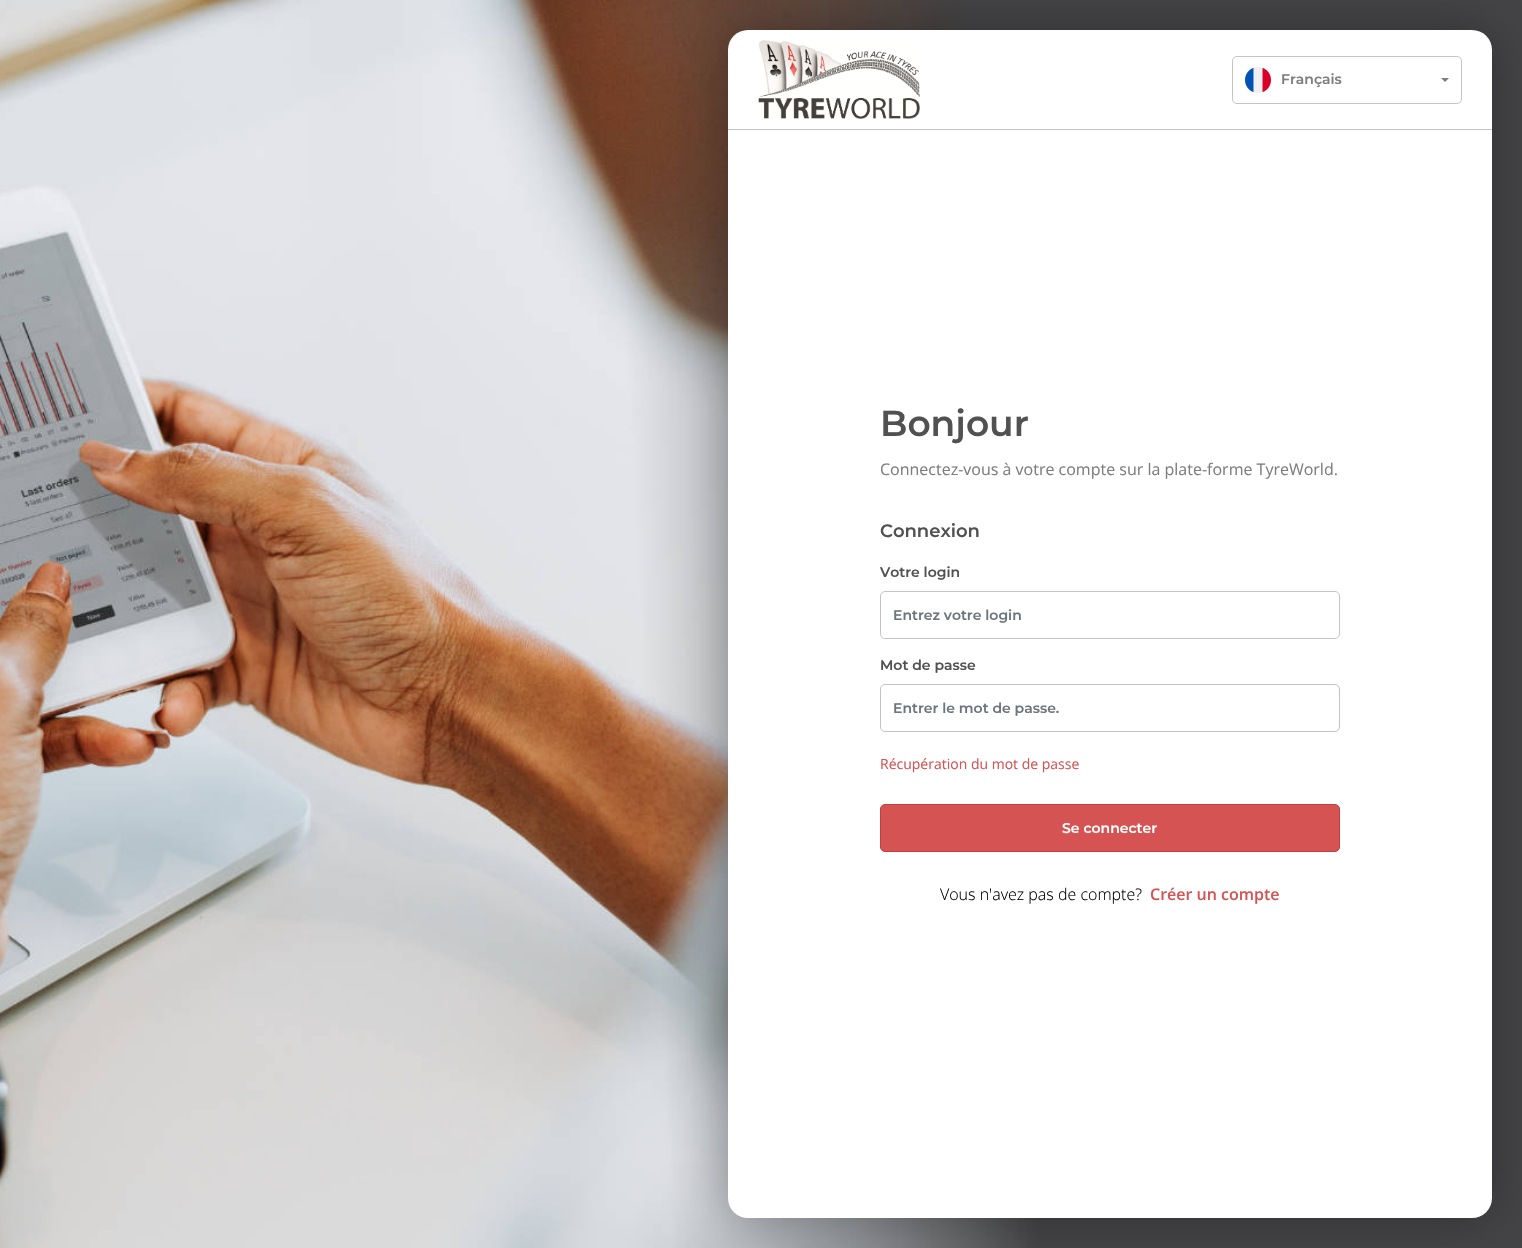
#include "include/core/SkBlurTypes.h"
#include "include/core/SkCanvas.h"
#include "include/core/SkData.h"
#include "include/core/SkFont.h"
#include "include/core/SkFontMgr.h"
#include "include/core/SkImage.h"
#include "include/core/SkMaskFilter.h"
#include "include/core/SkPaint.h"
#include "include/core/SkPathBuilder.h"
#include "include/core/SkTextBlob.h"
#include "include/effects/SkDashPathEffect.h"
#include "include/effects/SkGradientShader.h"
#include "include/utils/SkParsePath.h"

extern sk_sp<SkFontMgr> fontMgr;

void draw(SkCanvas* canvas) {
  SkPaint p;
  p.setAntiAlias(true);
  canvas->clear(SK_ColorWHITE);
  canvas->drawImageRect(SkImages::DeferredFromEncodedData(SkData::MakeFromFileName("images/1.png")), SkRect::MakeLTRB(0, 0, 1522, 1248), SkSamplingOptions());
  p.setColor(SkColorSetARGB(77, 0, 0, 0));
  p.setMaskFilter(SkMaskFilter::MakeBlur(kNormal_SkBlurStyle, 25));
  canvas->drawRoundRect(SkRect::MakeLTRB(728, 30, 1492, 1218), 20, 20, p);
  p.setMaskFilter(nullptr);
  p.setColor(SK_ColorWHITE);
  canvas->drawRoundRect(SkRect::MakeLTRB(728, 30, 1492, 1218), 20, 20, p);
  p.setColor(SkColorSetRGB(196, 196, 196));
  canvas->drawRect(SkRect::MakeLTRB(728, 129, 1492, 130), p);
  canvas->drawImageRect(SkImages::DeferredFromEncodedData(SkData::MakeFromFileName("images/2.png")), SkRect::MakeLTRB(758, 40, 920, 119), SkSamplingOptions());
  p.setStyle(SkPaint::kStroke_Style);
  p.setStrokeWidth(1);
  canvas->drawRoundRect(SkRect::MakeLTRB(1232.5f, 56.5f, 1461.5f, 103.5f), 4.5f, 4.5f, p);
  canvas->drawImageRect(SkImages::DeferredFromEncodedData(SkData::MakeFromFileName("images/3.png")), SkRect::MakeLTRB(1245, 67, 1271, 93), SkSamplingOptions());
  p.setStyle(SkPaint::kFill_Style);
  p.setColor(SkColorSetRGB(125, 125, 125));
  canvas->drawPath(SkPathBuilder().moveTo(1441, 78).lineTo(1449, 78).lineTo(1445, 82).close().detach(), p);
  p.setStyle(SkPaint::kStroke_Style);
  p.setColor(SkColorSetRGB(196, 196, 196));
  canvas->drawRoundRect(SkRect::MakeLTRB(880.5f, 591.5f, 1339.5f, 638.5f), 4.5f, 4.5f, p);
  canvas->drawRoundRect(SkRect::MakeLTRB(880.5f, 684.5f, 1339.5f, 731.5f), 4.5f, 4.5f, p);
  p.setStyle(SkPaint::kFill_Style);
  p.setColor(SkColorSetRGB(214, 83, 83));
  canvas->drawRoundRect(SkRect::MakeLTRB(880.5f, 804.5f, 1339.5f, 851.5f), 4.5f, 4.5f, p);
  p.setStyle(SkPaint::kStroke_Style);
  p.setColor(SkColorSetRGB(193, 63, 63));
  canvas->drawRoundRect(SkRect::MakeLTRB(880.5f, 804.5f, 1339.5f, 851.5f), 4.5f, 4.5f, p);
  SkFont font1(fontMgr->matchFamilyStyle("Montserrat", SkFontStyle(600, SkFontStyle::kNormal_Width, SkFontStyle::kUpright_Slant)), 14);
  font1.setSubpixel(true);
  p.setStyle(SkPaint::kFill_Style);
  p.setColor(SkColorSetRGB(125, 125, 125));
  canvas->drawString("Français", 1281, 84, font1, p);
  SkFont font2(fontMgr->matchFamilyStyle("Montserrat", SkFontStyle(600, SkFontStyle::kNormal_Width, SkFontStyle::kUpright_Slant)), 36);
  font2.setSubpixel(true);
  p.setColor(SkColorSetRGB(81, 81, 81));
  canvas->drawString("Bonjour", 880, 436, font2, p);
  SkFont font3(fontMgr->matchFamilyStyle("Open Sans", SkFontStyle::Normal()), 16);
  font3.setSubpixel(true);
  p.setColor(SkColorSetRGB(125, 125, 125));
  canvas->drawString("Connectez-vous à votre compte sur la plate-forme TyreWorld.", 880, 475, font3, p);
  SkFont font4(fontMgr->matchFamilyStyle("Montserrat", SkFontStyle(600, SkFontStyle::kNormal_Width, SkFontStyle::kUpright_Slant)), 18);
  font4.setSubpixel(true);
  p.setColor(SkColorSetRGB(81, 81, 81));
  canvas->drawString("Connexion", 880, 537, font4, p);
  canvas->drawString("Votre login", 880, 577, font1, p);
  p.setColor(SkColorSetRGB(108, 117, 125));
  canvas->drawString("Entrez votre login", 893, 620, font1, p);
  p.setColor(SkColorSetRGB(81, 81, 81));
  canvas->drawString("Mot de passe", 880, 670, font1, p);
  p.setColor(SkColorSetRGB(108, 117, 125));
  canvas->drawString("Entrer le mot de passe.", 893, 713, font1, p);
  SkFont font5(fontMgr->matchFamilyStyle("Open Sans", SkFontStyle::Normal()), 14);
  font5.setSubpixel(true);
  p.setColor(SkColorSetRGB(214, 83, 83));
  canvas->drawString("Récupération du mot de passe", 880, 769, font5, p);
  p.setColor(SK_ColorWHITE);
  canvas->drawString("Se connecter", 1062, 833, font1, p);
  SkFont font6(fontMgr->matchFamilyStyle("Open Sans", SkFontStyle(300, SkFontStyle::kNormal_Width, SkFontStyle::kUpright_Slant)), 16);
  font6.setSubpixel(true);
  p.setColor(SK_ColorBLACK);
  canvas->drawString("Vous n'avez pas de compte?", 940, 900, font6, p);
  SkFont font7(fontMgr->matchFamilyStyle("Open Sans", SkFontStyle(600, SkFontStyle::kNormal_Width, SkFontStyle::kUpright_Slant)), 16);
  font7.setSubpixel(true);
  p.setColor(SkColorSetRGB(214, 83, 83));
  canvas->drawString("Créer un compte", 1150, 900, font7, p);
}
